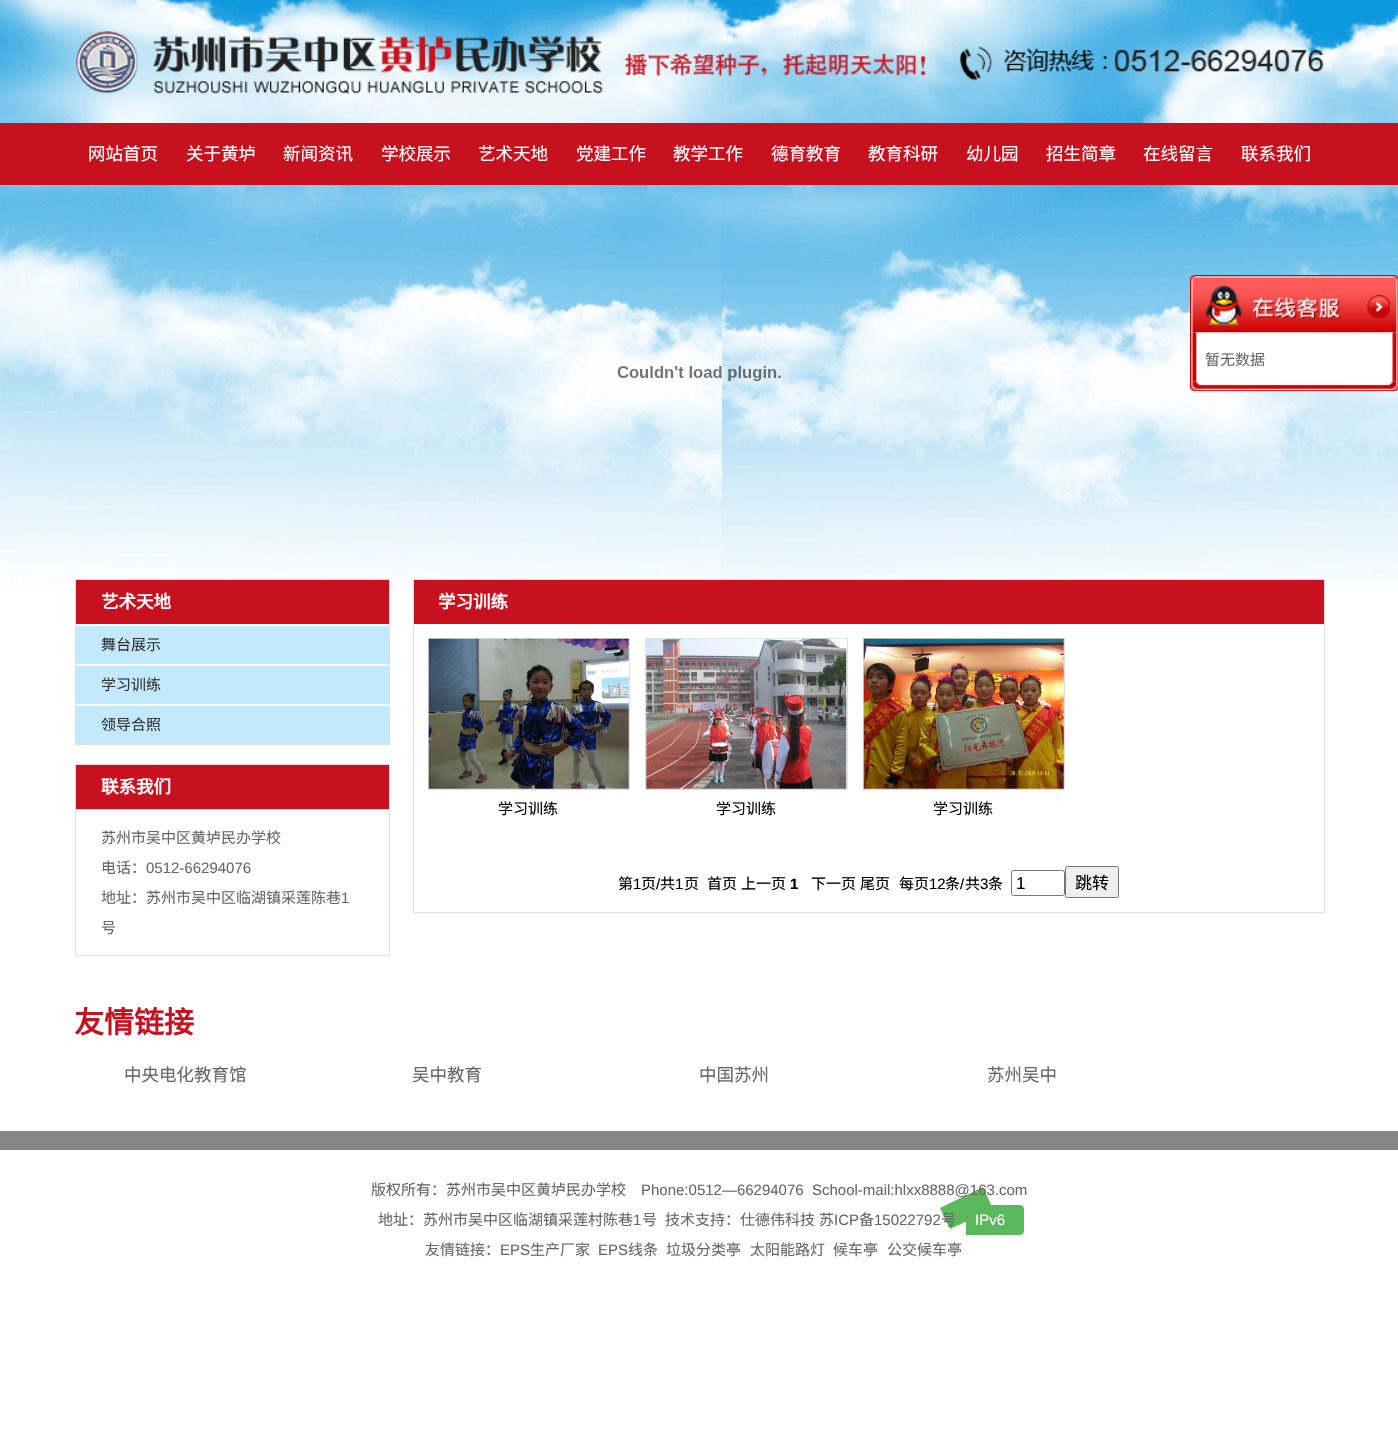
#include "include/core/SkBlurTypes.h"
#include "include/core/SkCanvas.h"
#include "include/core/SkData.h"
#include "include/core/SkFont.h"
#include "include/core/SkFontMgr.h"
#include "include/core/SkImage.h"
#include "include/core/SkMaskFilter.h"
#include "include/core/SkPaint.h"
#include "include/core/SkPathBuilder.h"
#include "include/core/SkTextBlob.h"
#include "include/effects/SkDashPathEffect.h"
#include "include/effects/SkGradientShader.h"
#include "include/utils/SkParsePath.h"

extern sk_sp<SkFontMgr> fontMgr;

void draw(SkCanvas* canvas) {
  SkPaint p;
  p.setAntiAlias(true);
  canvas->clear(SK_ColorWHITE);
  canvas->drawImageRect(SkImages::DeferredFromEncodedData(SkData::MakeFromFileName("images/1.png")), SkRect::MakeLTRB(0, 0, 1398, 588), SkSamplingOptions());
  canvas->drawImageRect(SkImages::DeferredFromEncodedData(SkData::MakeFromFileName("images/2.png")), SkRect::MakeLTRB(76, 31, 1324, 94), SkSamplingOptions());
  p.setColor(SkColorSetRGB(199, 17, 30));
  canvas->drawRect(SkRect::MakeLTRB(0, 123, 1398, 185), p);
  canvas->drawImageRect(SkImages::DeferredFromEncodedData(SkData::MakeFromFileName("images/3.png")), SkRect::MakeLTRB(617, 361, 789, 384), SkSamplingOptions());
  p.setStyle(SkPaint::kStroke_Style);
  p.setStrokeWidth(1);
  p.setColor(SkColorSetRGB(223, 223, 223));
  canvas->drawRect(SkRect::MakeLTRB(75.5f, 579.5f, 389.5f, 744.5f), p);
  p.setStyle(SkPaint::kFill_Style);
  p.setColor(SkColorSetRGB(199, 17, 30));
  canvas->drawRect(SkRect::MakeLTRB(76, 580, 389, 624), p);
  p.setColor(SkColorSetRGB(195, 233, 255));
  canvas->drawRect(SkRect::MakeLTRB(76, 626, 389, 664), p);
  canvas->drawRect(SkRect::MakeLTRB(76, 666, 389, 704), p);
  canvas->drawRect(SkRect::MakeLTRB(76, 706, 389, 744), p);
  p.setStyle(SkPaint::kStroke_Style);
  p.setColor(SkColorSetRGB(223, 223, 223));
  canvas->drawRect(SkRect::MakeLTRB(75.5f, 764.5f, 389.5f, 955.5f), p);
  p.setStyle(SkPaint::kFill_Style);
  p.setColor(SkColorSetRGB(199, 17, 30));
  canvas->drawRect(SkRect::MakeLTRB(76, 765, 389, 809), p);
  p.setColor(SkColorSetRGB(223, 223, 223));
  canvas->drawRect(SkRect::MakeLTRB(76, 809, 389, 810), p);
  p.setStyle(SkPaint::kStroke_Style);
  canvas->drawRect(SkRect::MakeLTRB(413.5f, 579.5f, 1324.5f, 912.5f), p);
  p.setStyle(SkPaint::kFill_Style);
  p.setColor(SkColorSetRGB(199, 17, 30));
  canvas->drawRect(SkRect::MakeLTRB(414, 580, 1324, 624), p);
  p.setStyle(SkPaint::kStroke_Style);
  p.setColor(SkColorSetRGB(223, 223, 223));
  canvas->drawRect(SkRect::MakeLTRB(428.5f, 638.5f, 629.5f, 789.5f), p);
  canvas->drawImageRect(SkImages::DeferredFromEncodedData(SkData::MakeFromFileName("images/4.png")), SkRect::MakeLTRB(428, 638, 629, 789), SkSamplingOptions());
  canvas->drawRect(SkRect::MakeLTRB(645.5f, 638.5f, 847.5f, 789.5f), p);
  canvas->drawImageRect(SkImages::DeferredFromEncodedData(SkData::MakeFromFileName("images/5.png")), SkRect::MakeLTRB(646, 638, 847, 789), SkSamplingOptions());
  canvas->drawRect(SkRect::MakeLTRB(863.5f, 638.5f, 1064.5f, 789.5f), p);
  canvas->drawImageRect(SkImages::DeferredFromEncodedData(SkData::MakeFromFileName("images/6.png")), SkRect::MakeLTRB(863, 638, 1064, 789), SkSamplingOptions());
  p.setColor(SkColorSetRGB(118, 118, 118));
  canvas->drawRoundRect(SkRect::MakeLTRB(1011.5f, 870.5f, 1064.5f, 895.5f), 2, 2, p);
  p.setStyle(SkPaint::kFill_Style);
  p.setColor(SkColorSetRGB(239, 239, 239));
  canvas->drawRoundRect(SkRect::MakeLTRB(1065.5f, 866.5f, 1118.5f, 897.5f), 2, 2, p);
  p.setStyle(SkPaint::kStroke_Style);
  p.setColor(SkColorSetRGB(118, 118, 118));
  canvas->drawRoundRect(SkRect::MakeLTRB(1065.5f, 866.5f, 1118.5f, 897.5f), 2, 2, p);
  p.setStyle(SkPaint::kFill_Style);
  p.setColor(SkColorSetRGB(134, 134, 134));
  canvas->drawRect(SkRect::MakeLTRB(0, 1131, 1398, 1150), p);
  p.setColor(SkColorSetRGB(92, 184, 92));
  canvas->drawPath(SkPathBuilder().moveTo(940, 1208).lineTo(983, 1187).lineTo(993, 1209).lineTo(950, 1229).close().detach(), p);
  canvas->drawPath(SkPathBuilder().moveTo(966, 1205).lineTo(1020, 1205).cubicTo(1022, 1205, 1024, 1207, 1024, 1209).lineTo(1024, 1231).cubicTo(1024, 1233, 1022, 1235, 1020, 1235).lineTo(966, 1235).close().detach(), p);
  canvas->drawImageRect(SkImages::DeferredFromEncodedData(SkData::MakeFromFileName("images/7.png")), SkRect::MakeLTRB(1190, 275, 1398, 333), SkSamplingOptions());
  canvas->drawImageRect(SkImages::DeferredFromEncodedData(SkData::MakeFromFileName("images/8.png")), SkRect::MakeLTRB(1366, 295, 1390, 319), SkSamplingOptions());
  canvas->drawImageRect(SkImages::DeferredFromEncodedData(SkData::MakeFromFileName("images/9.png")), SkRect::MakeLTRB(1190, 332, 1398, 382), SkSamplingOptions());
  canvas->drawImageRect(SkImages::DeferredFromEncodedData(SkData::MakeFromFileName("images/10.png")), SkRect::MakeLTRB(1190, 381, 1398, 392), SkSamplingOptions());
  SkFont font1(fontMgr->matchFamilyStyle("Noto Sans CJK SC", SkFontStyle::Normal()), 17.5f);
  font1.setSubpixel(true);
  p.setColor(SK_ColorWHITE);
  canvas->drawString("网站首页", 88, 160, font1, p);
  canvas->drawString("关于黄垆", 186, 160, font1, p);
  canvas->drawString("新闻资讯", 283, 160, font1, p);
  canvas->drawString("学校展示", 381, 160, font1, p);
  canvas->drawString("艺术天地", 478, 160, font1, p);
  canvas->drawString("党建工作", 576, 160, font1, p);
  canvas->drawString("教学工作", 673, 160, font1, p);
  canvas->drawString("德育教育", 771, 160, font1, p);
  canvas->drawString("教育科研", 868, 160, font1, p);
  canvas->drawString("幼儿园", 966, 160, font1, p);
  canvas->drawString("招生简章", 1046, 160, font1, p);
  canvas->drawString("在线留言", 1143, 160, font1, p);
  canvas->drawString("联系我们", 1241, 160, font1, p);
  SkFont font2(fontMgr->matchFamilyStyle("Noto Sans CJK SC", SkFontStyle::Bold()), 17.5f);
  font2.setSubpixel(true);
  canvas->drawString("艺术天地", 101, 608, font2, p);
  SkFont font3(fontMgr->matchFamilyStyle("Noto Sans CJK SC", SkFontStyle::Normal()), 15);
  font3.setSubpixel(true);
  p.setColor(SkColorSetRGB(51, 51, 51));
  canvas->drawString("舞台展示", 101, 650, font3, p);
  canvas->drawString("学习训练", 101, 690, font3, p);
  canvas->drawString("领导合照", 101, 730, font3, p);
  p.setColor(SK_ColorWHITE);
  canvas->drawString("联系我们", 101, 793, font2, p);
  p.setColor(SkColorSetRGB(103, 103, 103));
  canvas->drawString("苏州市吴中区黄垆民办学校", 101, 843, font3, p);
  canvas->drawString("电话：", 101, 873, font3, p);
  SkFont font4(fontMgr->matchFamilyStyle("Liberation Sans", SkFontStyle::Normal()), 15);
  font4.setSubpixel(true);
  canvas->drawString("0512-66294076", 146, 873, font4, p);
  canvas->drawString("地址：苏州市吴中区临湖镇采莲陈巷", 101, 903, font3, p);
  canvas->drawString("1", 341, 903, font4, p);
  canvas->drawString("号", 101, 933, font3, p);
  p.setColor(SK_ColorWHITE);
  canvas->drawString("学习训练", 438, 608, font2, p);
  p.setColor(SK_ColorBLACK);
  canvas->drawString("学习训练", 498, 814, font3, p);
  canvas->drawString("学习训练", 716, 814, font3, p);
  canvas->drawString("学习训练", 933, 814, font3, p);
  canvas->drawString("第", 618, 889, font3, p);
  canvas->drawString("1", 633, 889, font4, p);
  canvas->drawString("页", 641, 889, font3, p);
  canvas->drawString("/", 656, 889, font4, p);
  canvas->drawString("共", 660, 889, font3, p);
  canvas->drawString("1", 675, 889, font4, p);
  canvas->drawString("页", 684, 889, font3, p);
  canvas->drawString("首页", 707, 889, font3, p);
  canvas->drawString("上一页", 741, 889, font3, p);
  SkFont font5(fontMgr->matchFamilyStyle("Liberation Sans", SkFontStyle::Bold()), 15);
  font5.setSubpixel(true);
  canvas->drawString("1", 790, 889, font5, p);
  canvas->drawString("下一页", 811, 889, font3, p);
  canvas->drawString("尾页", 860, 889, font3, p);
  canvas->drawString("每页", 899, 889, font3, p);
  canvas->drawString("12", 929, 889, font4, p);
  canvas->drawString("条", 945, 889, font3, p);
  canvas->drawString("/", 960, 889, font4, p);
  canvas->drawString("共", 965, 889, font3, p);
  canvas->drawString("3", 980, 889, font4, p);
  canvas->drawString("条", 988, 889, font3, p);
  SkFont font6(fontMgr->matchFamilyStyle("Liberation Sans", SkFontStyle::Normal()), 17);
  font6.setSubpixel(true);
  canvas->drawString("1", 1016, 889, font6, p);
  SkFont font7(fontMgr->matchFamilyStyle("Noto Sans CJK SC", SkFontStyle::Normal()), 17);
  font7.setSubpixel(true);
  canvas->drawString("跳转", 1075, 889, font7, p);
  SkFont font8(fontMgr->matchFamilyStyle("Noto Sans CJK SC", SkFontStyle::Bold()), 30);
  font8.setSubpixel(true);
  p.setColor(SkColorSetRGB(199, 17, 30));
  canvas->drawString("友情链接", 74, 1033, font8, p);
  p.setColor(SkColorSetRGB(103, 103, 103));
  canvas->drawString("中央电化教育馆", 124, 1081, font1, p);
  canvas->drawString("吴中教育", 412, 1081, font1, p);
  canvas->drawString("中国苏州", 699, 1081, font1, p);
  canvas->drawString("苏州吴中", 987, 1081, font1, p);
  canvas->drawString("版权所有：苏州市吴中区黄垆民办学校", 371, 1195, font3, p);
  canvas->drawString("Phone:0512—66294076  School-mail:hlxx8888@163.com", 641, 1195, font4, p);
  canvas->drawString("地址：苏州市吴中区临湖镇采莲村陈巷", 378, 1225, font3, p);
  canvas->drawString("1", 633, 1225, font4, p);
  canvas->drawString("号", 642, 1225, font3, p);
  canvas->drawString("技术支持：仕德伟科技", 665, 1225, font3, p);
  canvas->drawString("苏", 819, 1225, font3, p);
  canvas->drawString("ICP", 834, 1225, font4, p);
  canvas->drawString("备", 859, 1225, font3, p);
  canvas->drawString("15022792", 874, 1225, font4, p);
  canvas->drawString("号", 941, 1225, font3, p);
  p.setColor(SK_ColorWHITE);
  canvas->drawString("IPv6", 975, 1225, font4, p);
  p.setColor(SkColorSetRGB(103, 103, 103));
  canvas->drawString("友情链接：", 425, 1255, font3, p);
  canvas->drawString("EPS", 500, 1255, font4, p);
  canvas->drawString("生产厂家", 530, 1255, font3, p);
  canvas->drawString("EPS", 598, 1255, font4, p);
  canvas->drawString("线条", 628, 1255, font3, p);
  canvas->drawString("垃圾分类亭", 666, 1255, font3, p);
  canvas->drawString("太阳能路灯", 750, 1255, font3, p);
  canvas->drawString("候车亭", 833, 1255, font3, p);
  canvas->drawString("公交候车亭", 887, 1255, font3, p);
  canvas->drawString("暂无数据", 1205, 365, font3, p);
}
